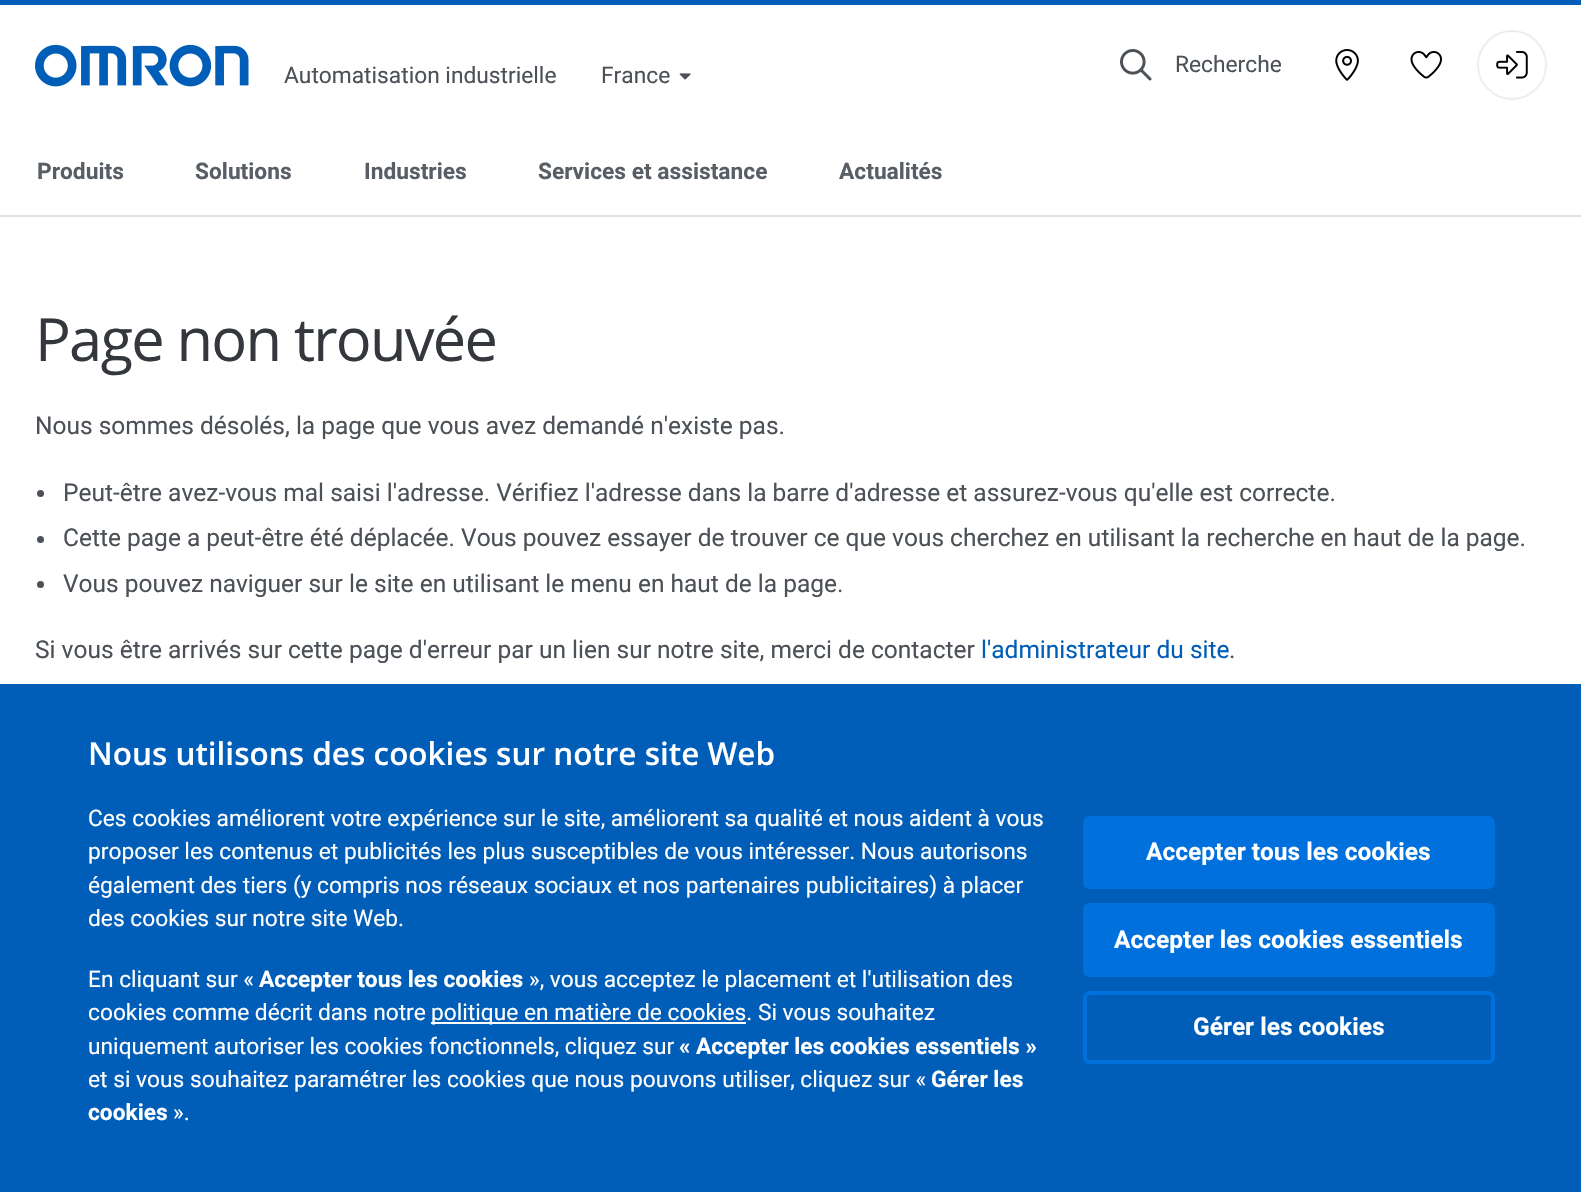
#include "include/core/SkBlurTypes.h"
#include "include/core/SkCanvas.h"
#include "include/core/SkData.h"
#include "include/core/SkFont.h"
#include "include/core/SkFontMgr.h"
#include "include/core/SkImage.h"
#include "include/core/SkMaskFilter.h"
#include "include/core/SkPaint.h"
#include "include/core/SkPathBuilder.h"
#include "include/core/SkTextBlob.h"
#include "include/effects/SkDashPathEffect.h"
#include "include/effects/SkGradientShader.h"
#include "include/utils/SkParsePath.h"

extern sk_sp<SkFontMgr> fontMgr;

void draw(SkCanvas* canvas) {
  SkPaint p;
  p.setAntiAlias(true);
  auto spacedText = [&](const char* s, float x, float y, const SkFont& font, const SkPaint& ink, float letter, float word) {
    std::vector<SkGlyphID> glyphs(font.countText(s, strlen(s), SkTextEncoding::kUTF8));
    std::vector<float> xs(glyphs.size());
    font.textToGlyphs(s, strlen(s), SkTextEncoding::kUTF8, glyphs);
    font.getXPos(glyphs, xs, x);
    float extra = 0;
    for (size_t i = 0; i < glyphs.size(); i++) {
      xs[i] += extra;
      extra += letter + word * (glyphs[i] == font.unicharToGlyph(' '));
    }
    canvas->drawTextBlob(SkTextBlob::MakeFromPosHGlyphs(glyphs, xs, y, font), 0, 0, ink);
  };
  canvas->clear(SK_ColorWHITE);
  p.setColor(SkColorSetRGB(0, 94, 184));
  canvas->drawRect(SkRect::MakeLTRB(0, 0, 1581, 5), p);
  canvas->drawImageRect(SkImages::DeferredFromEncodedData(SkData::MakeFromFileName("images/1.png")), SkRect::MakeLTRB(35, 44, 249, 87), SkSamplingOptions());
  canvas->drawImageRect(SkImages::DeferredFromEncodedData(SkData::MakeFromFileName("images/2.png")), SkRect::MakeLTRB(679, 73, 691, 80), SkSamplingOptions());
  canvas->drawImageRect(SkImages::DeferredFromEncodedData(SkData::MakeFromFileName("images/3.png")), SkRect::MakeLTRB(1120, 49, 1152, 81), SkSamplingOptions());
  canvas->drawImageRect(SkImages::DeferredFromEncodedData(SkData::MakeFromFileName("images/4.png")), SkRect::MakeLTRB(1335, 49, 1359, 81), SkSamplingOptions());
  canvas->drawImageRect(SkImages::DeferredFromEncodedData(SkData::MakeFromFileName("images/5.png")), SkRect::MakeLTRB(1410, 51, 1442, 79), SkSamplingOptions());
  p.setStyle(SkPaint::kStroke_Style);
  p.setStrokeWidth(2);
  p.setColor(SkColorSetRGB(238, 238, 238));
  canvas->drawCircle(1512, 65, 34, p);
  canvas->drawImageRect(SkImages::DeferredFromEncodedData(SkData::MakeFromFileName("images/6.png")), SkRect::MakeLTRB(1496, 51, 1528, 79), SkSamplingOptions());
  p.setStyle(SkPaint::kFill_Style);
  p.setColor(SkColorSetRGB(223, 223, 223));
  canvas->drawRect(SkRect::MakeLTRB(0, 215, 1581, 217), p);
  p.setColor(SkColorSetRGB(76, 81, 87));
  canvas->drawCircle(40.5f, 493.5f, 3.5f, p);
  canvas->drawCircle(40.5f, 539.5f, 3.5f, p);
  canvas->drawCircle(40.5f, 584.5f, 3.5f, p);
  p.setColor(SkColorSetRGB(0, 94, 184));
  canvas->drawRect(SkRect::MakeLTRB(0, 684, 1581, 1192), p);
  p.setColor(SK_ColorWHITE);
  canvas->drawRect(SkRect::MakeLTRB(431, 1022, 746, 1024), p);
  p.setColor(SkColorSetRGB(0, 112, 220));
  canvas->drawRoundRect(SkRect::MakeLTRB(1085, 818, 1493, 887), 5, 5, p);
  p.setStyle(SkPaint::kStroke_Style);
  p.setStrokeWidth(4);
  canvas->drawRoundRect(SkRect::MakeLTRB(1085, 818, 1493, 887), 5, 5, p);
  p.setStyle(SkPaint::kFill_Style);
  canvas->drawRoundRect(SkRect::MakeLTRB(1085, 905, 1493, 975), 5, 5, p);
  p.setStyle(SkPaint::kStroke_Style);
  canvas->drawRoundRect(SkRect::MakeLTRB(1085, 905, 1493, 975), 5, 5, p);
  canvas->drawRoundRect(SkRect::MakeLTRB(1085, 993, 1493, 1062), 5, 5, p);
  SkFont font1(fontMgr->matchFamilyStyle("Roboto", SkFontStyle::Normal()), 22.75f);
  font1.setSubpixel(true);
  p.setStyle(SkPaint::kFill_Style);
  p.setColor(SkColorSetRGB(76, 81, 87));
  canvas->drawString("Automatisation industrielle", 284, 83, font1, p);
  canvas->drawString("France", 601, 83, font1, p);
  canvas->drawString("Recherche", 1175, 72, font1, p);
  SkFont font2(fontMgr->matchFamilyStyle("Roboto", SkFontStyle::Bold()), 22.75f);
  font2.setSubpixel(true);
  p.setColor(SkColorSetRGB(88, 94, 101));
  canvas->drawString("Produits", 37, 179, font2, p);
  canvas->drawString("Solutions", 195, 179, font2, p);
  canvas->drawString("Industries", 364, 179, font2, p);
  canvas->drawString("Services et assistance", 538, 179, font2, p);
  canvas->drawString("Actualités", 839, 179, font2, p);
  SkFont font3(fontMgr->matchFamilyStyle("Open Sans", SkFontStyle::Normal()), 59.5f);
  font3.setSubpixel(true);
  p.setColor(SkColorSetRGB(52, 56, 60));
  spacedText("Page non trouvée", 35, 361, font3, p, -1.75f, 0);
  SkFont font4(fontMgr->matchFamilyStyle("Roboto", SkFontStyle::Normal()), 24.5f);
  font4.setSubpixel(true);
  p.setColor(SkColorSetRGB(76, 81, 87));
  canvas->drawString("Nous sommes désolés, la page que vous avez demandé n'existe pas.", 35, 434, font4, p);
  canvas->drawString("Peut-être avez-vous mal saisi l'adresse. Vérifiez l'adresse dans la barre d'adresse et assurez-vous qu'elle est correcte.", 63, 501, font4, p);
  canvas->drawString("Cette page a peut-être été déplacée. Vous pouvez essayer de trouver ce que vous cherchez en utilisant la recherche en haut de la page.", 63, 546, font4, p);
  canvas->drawString("Vous pouvez naviguer sur le site en utilisant le menu en haut de la page.", 63, 592, font4, p);
  canvas->drawString("Si vous être arrivés sur cette page d'erreur par un lien sur notre site, merci de contacter", 35, 658, font4, p);
  p.setColor(SkColorSetRGB(0, 94, 184));
  canvas->drawString("l'administrateur du site", 981, 658, font4, p);
  p.setColor(SkColorSetRGB(76, 81, 87));
  canvas->drawString(".", 1229, 658, font4, p);
  SkFont font5(fontMgr->matchFamilyStyle("Open Sans", SkFontStyle(600, SkFontStyle::kNormal_Width, SkFontStyle::kUpright_Slant)), 31.5f);
  font5.setSubpixel(true);
  p.setColor(SK_ColorWHITE);
  canvas->drawString("Nous utilisons des cookies sur notre site Web", 88, 765, font5, p);
  canvas->drawString("Ces cookies améliorent votre expérience sur le site, améliorent sa qualité et nous aident à vous", 88, 826, font1, p);
  canvas->drawString("proposer les contenus et publicités les plus susceptibles de vous intéresser. Nous autorisons", 88, 859, font1, p);
  canvas->drawString("également des tiers (y compris nos réseaux sociaux et nos partenaires publicitaires) à placer", 88, 893, font1, p);
  canvas->drawString("des cookies sur notre site Web.", 88, 926, font1, p);
  canvas->drawString("En cliquant sur «", 88, 987, font1, p);
  canvas->drawString("Accepter tous les cookies", 259, 987, font2, p);
  canvas->drawString("», vous acceptez le placement et l'utilisation des", 529, 987, font1, p);
  canvas->drawString("cookies comme décrit dans notre", 88, 1020, font1, p);
  canvas->drawString("politique en matière de cookies. Si vous souhaitez", 431, 1020, font1, p);
  canvas->drawString("uniquement autoriser les cookies fonctionnels, cliquez sur", 88, 1054, font1, p);
  canvas->drawString("« Accepter les cookies essentiels »", 679, 1054, font2, p);
  canvas->drawString("et si vous souhaitez paramétrer les cookies que nous pouvons utiliser, cliquez sur «", 88, 1087, font1, p);
  canvas->drawString("Gérer les", 931, 1087, font2, p);
  canvas->drawString("cookies", 88, 1120, font2, p);
  canvas->drawString("».", 173, 1120, font1, p);
  SkFont font6(fontMgr->matchFamilyStyle("Roboto", SkFontStyle::Bold()), 24.5f);
  font6.setSubpixel(true);
  canvas->drawString("Accepter tous les cookies", 1146, 860, font6, p);
  canvas->drawString("Accepter les cookies essentiels", 1114, 948, font6, p);
  canvas->drawString("Gérer les cookies", 1193, 1035, font6, p);
}
